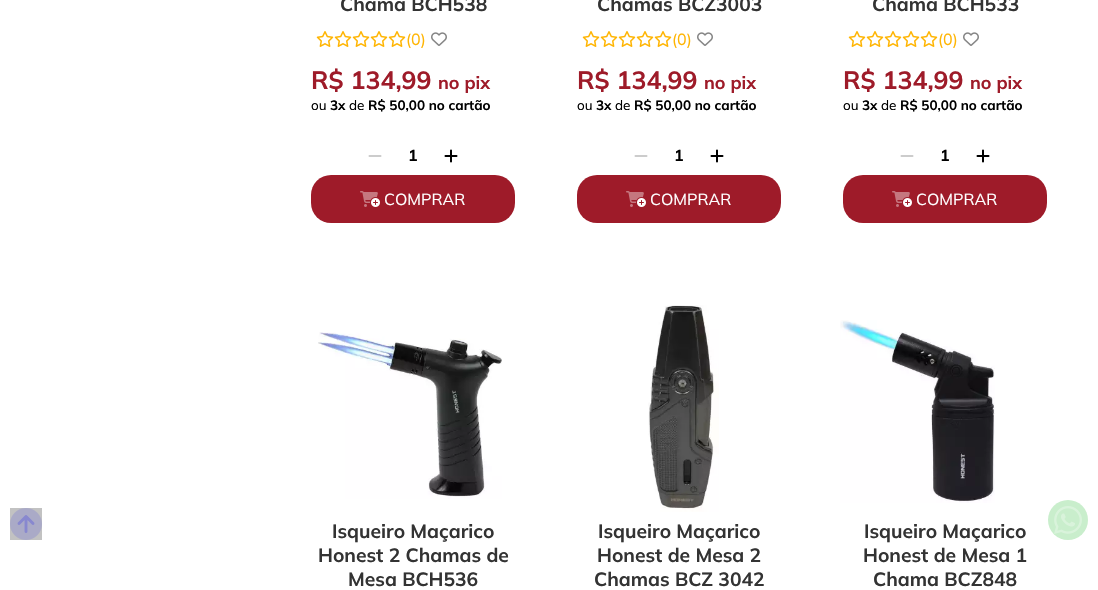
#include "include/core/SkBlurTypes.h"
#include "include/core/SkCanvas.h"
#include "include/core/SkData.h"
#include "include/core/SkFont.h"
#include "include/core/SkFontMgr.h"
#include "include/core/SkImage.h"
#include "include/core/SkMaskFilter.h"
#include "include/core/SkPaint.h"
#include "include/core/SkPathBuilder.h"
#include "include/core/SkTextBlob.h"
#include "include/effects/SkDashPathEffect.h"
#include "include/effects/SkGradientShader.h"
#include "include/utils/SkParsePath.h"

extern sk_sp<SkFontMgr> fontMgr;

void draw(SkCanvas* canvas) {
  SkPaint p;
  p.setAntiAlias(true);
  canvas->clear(SK_ColorWHITE);
  p.setColor(SkColorSetRGB(194, 194, 194));
  canvas->drawRect(SkRect::MakeLTRB(10, 508, 42, 540), p);
  canvas->drawImageRect(SkImages::DeferredFromEncodedData(SkData::MakeFromFileName("images/1.png")), SkRect::MakeLTRB(10, 508, 42, 540), SkSamplingOptions());
  canvas->drawImageRect(SkImages::DeferredFromEncodedData(SkData::MakeFromFileName("images/2.png")), SkRect::MakeLTRB(316, 31, 334, 47), SkSamplingOptions());
  canvas->drawImageRect(SkImages::DeferredFromEncodedData(SkData::MakeFromFileName("images/2.png")), SkRect::MakeLTRB(334, 31, 352, 47), SkSamplingOptions());
  canvas->drawImageRect(SkImages::DeferredFromEncodedData(SkData::MakeFromFileName("images/2.png")), SkRect::MakeLTRB(352, 31, 370, 47), SkSamplingOptions());
  canvas->drawImageRect(SkImages::DeferredFromEncodedData(SkData::MakeFromFileName("images/2.png")), SkRect::MakeLTRB(370, 31, 388, 47), SkSamplingOptions());
  canvas->drawImageRect(SkImages::DeferredFromEncodedData(SkData::MakeFromFileName("images/2.png")), SkRect::MakeLTRB(388, 31, 406, 47), SkSamplingOptions());
  canvas->drawImageRect(SkImages::DeferredFromEncodedData(SkData::MakeFromFileName("images/3.png")), SkRect::MakeLTRB(431, 32, 447, 46), SkSamplingOptions());
  canvas->drawImageRect(SkImages::DeferredFromEncodedData(SkData::MakeFromFileName("images/4.png")), SkRect::MakeLTRB(368, 155, 382, 157), SkSamplingOptions());
  canvas->drawImageRect(SkImages::DeferredFromEncodedData(SkData::MakeFromFileName("images/5.png")), SkRect::MakeLTRB(444, 149, 458, 163), SkSamplingOptions());
  p.setColor(SkColorSetRGB(158, 27, 41));
  canvas->drawRoundRect(SkRect::MakeLTRB(311, 175, 515, 223), 20, 20, p);
  canvas->drawImageRect(SkImages::DeferredFromEncodedData(SkData::MakeFromFileName("images/6.png")), SkRect::MakeLTRB(360, 191, 380, 207), SkSamplingOptions());
  canvas->drawImageRect(SkImages::DeferredFromEncodedData(SkData::MakeFromFileName("images/2.png")), SkRect::MakeLTRB(582, 31, 600, 47), SkSamplingOptions());
  canvas->drawImageRect(SkImages::DeferredFromEncodedData(SkData::MakeFromFileName("images/2.png")), SkRect::MakeLTRB(600, 31, 618, 47), SkSamplingOptions());
  canvas->drawImageRect(SkImages::DeferredFromEncodedData(SkData::MakeFromFileName("images/2.png")), SkRect::MakeLTRB(618, 31, 636, 47), SkSamplingOptions());
  canvas->drawImageRect(SkImages::DeferredFromEncodedData(SkData::MakeFromFileName("images/2.png")), SkRect::MakeLTRB(636, 31, 654, 47), SkSamplingOptions());
  canvas->drawImageRect(SkImages::DeferredFromEncodedData(SkData::MakeFromFileName("images/2.png")), SkRect::MakeLTRB(654, 31, 672, 47), SkSamplingOptions());
  canvas->drawImageRect(SkImages::DeferredFromEncodedData(SkData::MakeFromFileName("images/3.png")), SkRect::MakeLTRB(697, 32, 713, 46), SkSamplingOptions());
  canvas->drawImageRect(SkImages::DeferredFromEncodedData(SkData::MakeFromFileName("images/4.png")), SkRect::MakeLTRB(634, 155, 648, 157), SkSamplingOptions());
  canvas->drawImageRect(SkImages::DeferredFromEncodedData(SkData::MakeFromFileName("images/5.png")), SkRect::MakeLTRB(710, 149, 724, 163), SkSamplingOptions());
  canvas->drawRoundRect(SkRect::MakeLTRB(577, 175, 781, 223), 20, 20, p);
  canvas->drawImageRect(SkImages::DeferredFromEncodedData(SkData::MakeFromFileName("images/6.png")), SkRect::MakeLTRB(626, 191, 646, 207), SkSamplingOptions());
  canvas->drawImageRect(SkImages::DeferredFromEncodedData(SkData::MakeFromFileName("images/2.png")), SkRect::MakeLTRB(848, 31, 866, 47), SkSamplingOptions());
  canvas->drawImageRect(SkImages::DeferredFromEncodedData(SkData::MakeFromFileName("images/2.png")), SkRect::MakeLTRB(866, 31, 884, 47), SkSamplingOptions());
  canvas->drawImageRect(SkImages::DeferredFromEncodedData(SkData::MakeFromFileName("images/2.png")), SkRect::MakeLTRB(884, 31, 902, 47), SkSamplingOptions());
  canvas->drawImageRect(SkImages::DeferredFromEncodedData(SkData::MakeFromFileName("images/2.png")), SkRect::MakeLTRB(902, 31, 920, 47), SkSamplingOptions());
  canvas->drawImageRect(SkImages::DeferredFromEncodedData(SkData::MakeFromFileName("images/2.png")), SkRect::MakeLTRB(920, 31, 938, 47), SkSamplingOptions());
  canvas->drawImageRect(SkImages::DeferredFromEncodedData(SkData::MakeFromFileName("images/3.png")), SkRect::MakeLTRB(963, 32, 979, 46), SkSamplingOptions());
  canvas->drawImageRect(SkImages::DeferredFromEncodedData(SkData::MakeFromFileName("images/4.png")), SkRect::MakeLTRB(900, 155, 914, 157), SkSamplingOptions());
  canvas->drawImageRect(SkImages::DeferredFromEncodedData(SkData::MakeFromFileName("images/5.png")), SkRect::MakeLTRB(976, 149, 990, 163), SkSamplingOptions());
  canvas->drawRoundRect(SkRect::MakeLTRB(843, 175, 1047, 223), 20, 20, p);
  canvas->drawImageRect(SkImages::DeferredFromEncodedData(SkData::MakeFromFileName("images/6.png")), SkRect::MakeLTRB(892, 191, 912, 207), SkSamplingOptions());
  canvas->drawImageRect(SkImages::DeferredFromEncodedData(SkData::MakeFromFileName("images/7.png")), SkRect::MakeLTRB(318, 332, 502, 499), SkSamplingOptions());
  canvas->drawImageRect(SkImages::DeferredFromEncodedData(SkData::MakeFromFileName("images/8.png")), SkRect::MakeLTRB(648, 305, 719, 512), SkSamplingOptions());
  canvas->drawImageRect(SkImages::DeferredFromEncodedData(SkData::MakeFromFileName("images/9.png")), SkRect::MakeLTRB(840, 320, 995, 503), SkSamplingOptions());
  p.setColor(SkColorSetRGB(201, 238, 204));
  canvas->drawCircle(1068, 520, 20, p);
  canvas->drawImageRect(SkImages::DeferredFromEncodedData(SkData::MakeFromFileName("images/10.png")), SkRect::MakeLTRB(1054, 506, 1082, 534), SkSamplingOptions());
  SkFont font1(fontMgr->matchFamilyStyle("Mulish", SkFontStyle::Bold()), 19.25f);
  font1.setSubpixel(true);
  p.setColor(SkColorSetRGB(51, 51, 51));
  canvas->drawString("Chama BCH538", 340, 11, font1, p);
  SkFont font2(fontMgr->matchFamilyStyle("Mulish", SkFontStyle::Normal()), 16);
  font2.setSubpixel(true);
  p.setColor(SkColorSetRGB(255, 181, 3));
  canvas->drawString("(0)", 406, 45, font2, p);
  SkFont font3(fontMgr->matchFamilyStyle("Mulish", SkFontStyle::Bold()), 25);
  font3.setSubpixel(true);
  p.setColor(SkColorSetRGB(158, 27, 41));
  canvas->drawString("R$ 134,99", 311, 89, font3, p);
  SkFont font4(fontMgr->matchFamilyStyle("Mulish", SkFontStyle::Bold()), 18);
  font4.setSubpixel(true);
  canvas->drawString("no pix", 438, 89, font4, p);
  SkFont font5(fontMgr->matchFamilyStyle("Mulish", SkFontStyle::Normal()), 13.5f);
  font5.setSubpixel(true);
  p.setColor(SK_ColorBLACK);
  canvas->drawString("ou", 311, 110, font5, p);
  SkFont font6(fontMgr->matchFamilyStyle("Mulish", SkFontStyle::Bold()), 13.5f);
  font6.setSubpixel(true);
  canvas->drawString("3x", 330, 110, font6, p);
  canvas->drawString("de", 349, 110, font5, p);
  canvas->drawString("R$ 50,00 no cartão", 368, 110, font6, p);
  SkFont font7(fontMgr->matchFamilyStyle("Mulish", SkFontStyle::Bold()), 16);
  font7.setSubpixel(true);
  canvas->drawString("1", 408, 161, font7, p);
  p.setColor(SK_ColorWHITE);
  canvas->drawString("COMPRAR", 384, 205, font2, p);
  p.setColor(SkColorSetRGB(51, 51, 51));
  canvas->drawString("Chamas BCZ3003", 597, 11, font1, p);
  p.setColor(SkColorSetRGB(255, 181, 3));
  canvas->drawString("(0)", 672, 45, font2, p);
  p.setColor(SkColorSetRGB(158, 27, 41));
  canvas->drawString("R$ 134,99", 577, 89, font3, p);
  canvas->drawString("no pix", 704, 89, font4, p);
  p.setColor(SK_ColorBLACK);
  canvas->drawString("ou", 577, 110, font5, p);
  canvas->drawString("3x", 596, 110, font6, p);
  canvas->drawString("de", 615, 110, font5, p);
  canvas->drawString("R$ 50,00 no cartão", 634, 110, font6, p);
  canvas->drawString("1", 674, 161, font7, p);
  p.setColor(SK_ColorWHITE);
  canvas->drawString("COMPRAR", 650, 205, font2, p);
  p.setColor(SkColorSetRGB(51, 51, 51));
  canvas->drawString("Chama BCH533", 872, 11, font1, p);
  p.setColor(SkColorSetRGB(255, 181, 3));
  canvas->drawString("(0)", 938, 45, font2, p);
  p.setColor(SkColorSetRGB(158, 27, 41));
  canvas->drawString("R$ 134,99", 843, 89, font3, p);
  canvas->drawString("no pix", 970, 89, font4, p);
  p.setColor(SK_ColorBLACK);
  canvas->drawString("ou", 843, 110, font5, p);
  canvas->drawString("3x", 862, 110, font6, p);
  canvas->drawString("de", 881, 110, font5, p);
  canvas->drawString("R$ 50,00 no cartão", 900, 110, font6, p);
  canvas->drawString("1", 940, 161, font7, p);
  p.setColor(SK_ColorWHITE);
  canvas->drawString("COMPRAR", 916, 205, font2, p);
  p.setColor(SkColorSetRGB(51, 51, 51));
  canvas->drawString("Isqueiro Maçarico", 332, 538, font1, p);
  canvas->drawString("Honest 2 Chamas de", 318, 562, font1, p);
  canvas->drawString("Mesa BCH536", 348, 586, font1, p);
  canvas->drawString("Isqueiro Maçarico", 598, 538, font1, p);
  canvas->drawString("Honest de Mesa 2", 597, 562, font1, p);
  canvas->drawString("Chamas BCZ 3042", 594, 586, font1, p);
  canvas->drawString("Isqueiro Maçarico", 864, 538, font1, p);
  canvas->drawString("Honest de Mesa 1", 863, 562, font1, p);
  canvas->drawString("Chama BCZ848", 873, 586, font1, p);
}
